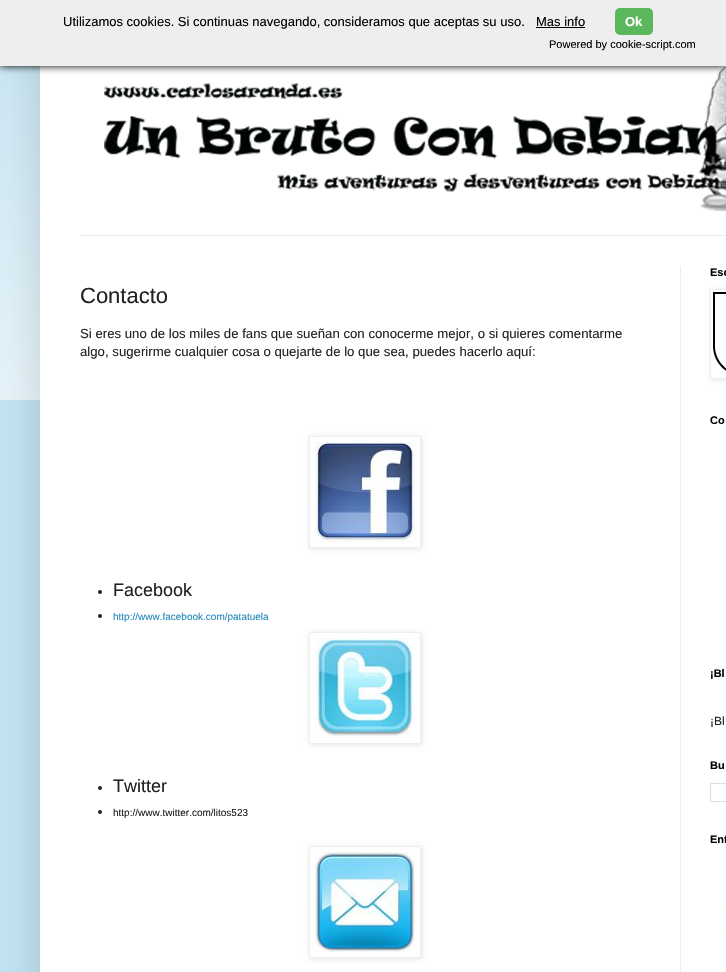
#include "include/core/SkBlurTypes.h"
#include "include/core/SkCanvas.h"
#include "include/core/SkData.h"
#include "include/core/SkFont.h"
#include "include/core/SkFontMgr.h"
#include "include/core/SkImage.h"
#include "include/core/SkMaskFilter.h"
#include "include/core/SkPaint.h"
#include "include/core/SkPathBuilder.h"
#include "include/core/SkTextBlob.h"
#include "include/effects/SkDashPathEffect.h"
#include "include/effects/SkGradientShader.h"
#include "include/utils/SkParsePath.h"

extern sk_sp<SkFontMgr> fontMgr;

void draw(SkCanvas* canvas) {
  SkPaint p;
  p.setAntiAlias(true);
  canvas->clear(SkColorSetRGB(194, 227, 242));
  canvas->drawImageRect(SkImages::DeferredFromEncodedData(SkData::MakeFromFileName("images/1.png")), SkRect::MakeLTRB(0, 66, 40, 400), SkSamplingOptions());
  p.setColor(SkColorSetARGB(38, 0, 0, 0));
  p.setMaskFilter(SkMaskFilter::MakeBlur(kNormal_SkBlurStyle, 20));
  canvas->drawRect(SkRect::MakeLTRB(40, 30, 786, 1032), p);
  p.setMaskFilter(nullptr);
  p.setColor(SK_ColorWHITE);
  canvas->drawRect(SkRect::MakeLTRB(40, 66, 726, 972), p);
  canvas->drawImageRect(SkImages::DeferredFromEncodedData(SkData::MakeFromFileName("images/2.png")), SkRect::MakeLTRB(104, 66, 726, 211), SkSamplingOptions());
  p.setColor(SK_ColorBLACK);
  p.setMaskFilter(SkMaskFilter::MakeBlur(kNormal_SkBlurStyle, 4));
  canvas->drawRect(SkRect::MakeLTRB(0, 0, 726, 66), p);
  p.setMaskFilter(nullptr);
  p.setColor(SkColorSetRGB(238, 238, 238));
  canvas->drawRect(SkRect::MakeLTRB(0, 0, 726, 66), p);
  p.setColor(SK_ColorBLACK);
  canvas->drawRect(SkRect::MakeLTRB(536, 27, 585, 28), p);
  p.setColor(SkColorSetRGB(91, 183, 91));
  canvas->drawRoundRect(SkRect::MakeLTRB(615, 8, 653, 35), 5, 5, p);
  p.setColor(SkColorSetRGB(238, 238, 238));
  canvas->drawRect(SkRect::MakeLTRB(80, 235, 726, 236), p);
  canvas->drawRect(SkRect::MakeLTRB(680, 266, 681, 972), p);
  canvas->save();
  canvas->clipPath(SkPathBuilder(SkPathFillType::kEvenOdd).moveTo(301, 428).lineTo(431, 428).lineTo(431, 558).lineTo(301, 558).close().moveTo(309, 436).lineTo(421, 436).lineTo(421, 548).lineTo(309, 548).close().detach(), true);
  p.setColor(SkColorSetARGB(26, 0, 0, 0));
  p.setMaskFilter(SkMaskFilter::MakeBlur(kNormal_SkBlurStyle, 2.5f));
  canvas->drawRect(SkRect::MakeLTRB(310, 437, 422, 549), p);
  p.setMaskFilter(nullptr);
  canvas->restore();
  p.setStyle(SkPaint::kStroke_Style);
  p.setStrokeWidth(1);
  p.setColor(SkColorSetRGB(238, 238, 238));
  canvas->drawRect(SkRect::MakeLTRB(309.5f, 436.5f, 420.5f, 547.5f), p);
  canvas->drawImageRect(SkImages::DeferredFromEncodedData(SkData::MakeFromFileName("images/3.png")), SkRect::MakeLTRB(315, 442, 415, 542), SkSamplingOptions());
  p.setStyle(SkPaint::kFill_Style);
  p.setColor(SkColorSetRGB(34, 34, 34));
  canvas->drawCircle(100, 592, 2, p);
  canvas->drawCircle(100, 616, 2, p);
  canvas->save();
  canvas->clipPath(SkPathBuilder(SkPathFillType::kEvenOdd).moveTo(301, 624).lineTo(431, 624).lineTo(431, 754).lineTo(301, 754).close().moveTo(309, 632).lineTo(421, 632).lineTo(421, 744).lineTo(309, 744).close().detach(), true);
  p.setColor(SkColorSetARGB(26, 0, 0, 0));
  p.setMaskFilter(SkMaskFilter::MakeBlur(kNormal_SkBlurStyle, 2.5f));
  canvas->drawRect(SkRect::MakeLTRB(310, 633, 422, 745), p);
  p.setMaskFilter(nullptr);
  canvas->restore();
  p.setStyle(SkPaint::kStroke_Style);
  p.setColor(SkColorSetRGB(238, 238, 238));
  canvas->drawRect(SkRect::MakeLTRB(309.5f, 632.5f, 420.5f, 743.5f), p);
  canvas->drawImageRect(SkImages::DeferredFromEncodedData(SkData::MakeFromFileName("images/4.png")), SkRect::MakeLTRB(315, 638, 415, 736), SkSamplingOptions());
  p.setStyle(SkPaint::kFill_Style);
  p.setColor(SkColorSetRGB(34, 34, 34));
  canvas->drawCircle(100, 788, 2, p);
  canvas->drawCircle(100, 812, 2, p);
  canvas->save();
  canvas->clipPath(SkPathBuilder(SkPathFillType::kEvenOdd).moveTo(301, 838).lineTo(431, 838).lineTo(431, 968).lineTo(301, 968).close().moveTo(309, 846).lineTo(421, 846).lineTo(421, 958).lineTo(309, 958).close().detach(), true);
  p.setColor(SkColorSetARGB(26, 0, 0, 0));
  p.setMaskFilter(SkMaskFilter::MakeBlur(kNormal_SkBlurStyle, 2.5f));
  canvas->drawRect(SkRect::MakeLTRB(310, 847, 422, 959), p);
  p.setMaskFilter(nullptr);
  canvas->restore();
  p.setStyle(SkPaint::kStroke_Style);
  p.setColor(SkColorSetRGB(238, 238, 238));
  canvas->drawRect(SkRect::MakeLTRB(309.5f, 846.5f, 420.5f, 957.5f), p);
  canvas->drawImageRect(SkImages::DeferredFromEncodedData(SkData::MakeFromFileName("images/5.png")), SkRect::MakeLTRB(315, 852, 415, 952), SkSamplingOptions());
  canvas->save();
  canvas->clipPath(SkPathBuilder(SkPathFillType::kEvenOdd).moveTo(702, 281).lineTo(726, 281).lineTo(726, 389).lineTo(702, 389).close().moveTo(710, 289).lineTo(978, 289).lineTo(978, 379).lineTo(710, 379).close().detach(), true);
  p.setStyle(SkPaint::kFill_Style);
  p.setColor(SkColorSetARGB(26, 0, 0, 0));
  p.setMaskFilter(SkMaskFilter::MakeBlur(kNormal_SkBlurStyle, 2.5f));
  canvas->drawRect(SkRect::MakeLTRB(711, 290, 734, 380), p);
  p.setMaskFilter(nullptr);
  canvas->restore();
  p.setStyle(SkPaint::kStroke_Style);
  p.setColor(SkColorSetRGB(238, 238, 238));
  canvas->drawRect(SkRect::MakeLTRB(710.5f, 289.5f, 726.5f, 378.5f), p);
  canvas->drawImageRect(SkImages::DeferredFromEncodedData(SkData::MakeFromFileName("images/6.png")), SkRect::MakeLTRB(713, 292, 726, 371), SkSamplingOptions());
  p.setColor(SkColorSetRGB(221, 221, 221));
  canvas->drawRect(SkRect::MakeLTRB(710.5f, 783.5f, 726.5f, 801.5f), p);
  canvas->drawImageRect(SkImages::DeferredFromEncodedData(SkData::MakeFromFileName("images/7.png")), SkRect::MakeLTRB(725, 907, 726, 935), SkSamplingOptions());
  SkFont font1(fontMgr->matchFamilyStyle("Liberation Sans", SkFontStyle::Normal()), 13);
  font1.setSubpixel(true);
  p.setStyle(SkPaint::kFill_Style);
  p.setColor(SK_ColorBLACK);
  canvas->drawString("Utilizamos cookies. Si continuas navegando, consideramos que aceptas su uso.", 63, 26, font1, p);
  canvas->drawString("Mas info", 536, 26, font1, p);
  SkFont font2(fontMgr->matchFamilyStyle("Liberation Sans", SkFontStyle::Bold()), 13);
  font2.setSubpixel(true);
  p.setColor(SK_ColorWHITE);
  canvas->drawString("Ok", 625, 26, font2, p);
  SkFont font3(fontMgr->matchFamilyStyle("Liberation Sans", SkFontStyle::Normal()), 11);
  font3.setSubpixel(true);
  p.setColor(SK_ColorBLACK);
  canvas->drawString("Powered by cookie-script.com", 549, 48, font3, p);
  SkFont font4(fontMgr->matchFamilyStyle("Liberation Sans", SkFontStyle::Normal()), 22);
  font4.setSubpixel(true);
  p.setColor(SkColorSetRGB(34, 34, 34));
  canvas->drawString("Contacto", 80, 303, font4, p);
  SkFont font5(fontMgr->matchFamilyStyle("Liberation Sans", SkFontStyle::Normal()), 13.2f);
  font5.setSubpixel(true);
  canvas->drawString("Si eres uno de los miles de fans que sueñan con conocerme mejor, o si quieres comentarme", 80, 338, font5, p);
  canvas->drawString("algo, sugerirme cualquier cosa o quejarte de lo que sea, puedes hacerlo aquí:", 80, 356, font5, p);
  SkFont font6(fontMgr->matchFamilyStyle("Liberation Sans", SkFontStyle::Normal()), 18);
  font6.setSubpixel(true);
  canvas->drawString("Facebook", 113, 596, font6, p);
  SkFont font7(fontMgr->matchFamilyStyle("Liberation Sans", SkFontStyle::Normal()), 10);
  font7.setSubpixel(true);
  p.setColor(SkColorSetRGB(34, 136, 187));
  canvas->drawString("http://www.facebook.com/patatuela", 113, 620, font7, p);
  p.setColor(SkColorSetRGB(34, 34, 34));
  canvas->drawString("Twitter", 113, 792, font6, p);
  canvas->drawString("http://www.twitter.com/litos523", 113, 816, font7, p);
  SkFont font8(fontMgr->matchFamilyStyle("Liberation Sans", SkFontStyle::Bold()), 11);
  font8.setSubpixel(true);
  p.setColor(SK_ColorBLACK);
  canvas->drawString("Esc", 710, 276, font8, p);
  canvas->drawString("Co", 710, 424, font8, p);
  canvas->drawString("¡Bl", 710, 677, font8, p);
  SkFont font9(fontMgr->matchFamilyStyle("Liberation Sans", SkFontStyle::Normal()), 12);
  font9.setSubpixel(true);
  p.setColor(SkColorSetRGB(34, 34, 34));
  canvas->drawString("¡Bl", 710, 725, font9, p);
  p.setColor(SK_ColorBLACK);
  canvas->drawString("Bu", 710, 769, font8, p);
  canvas->drawString("Ent", 710, 843, font8, p);
}
